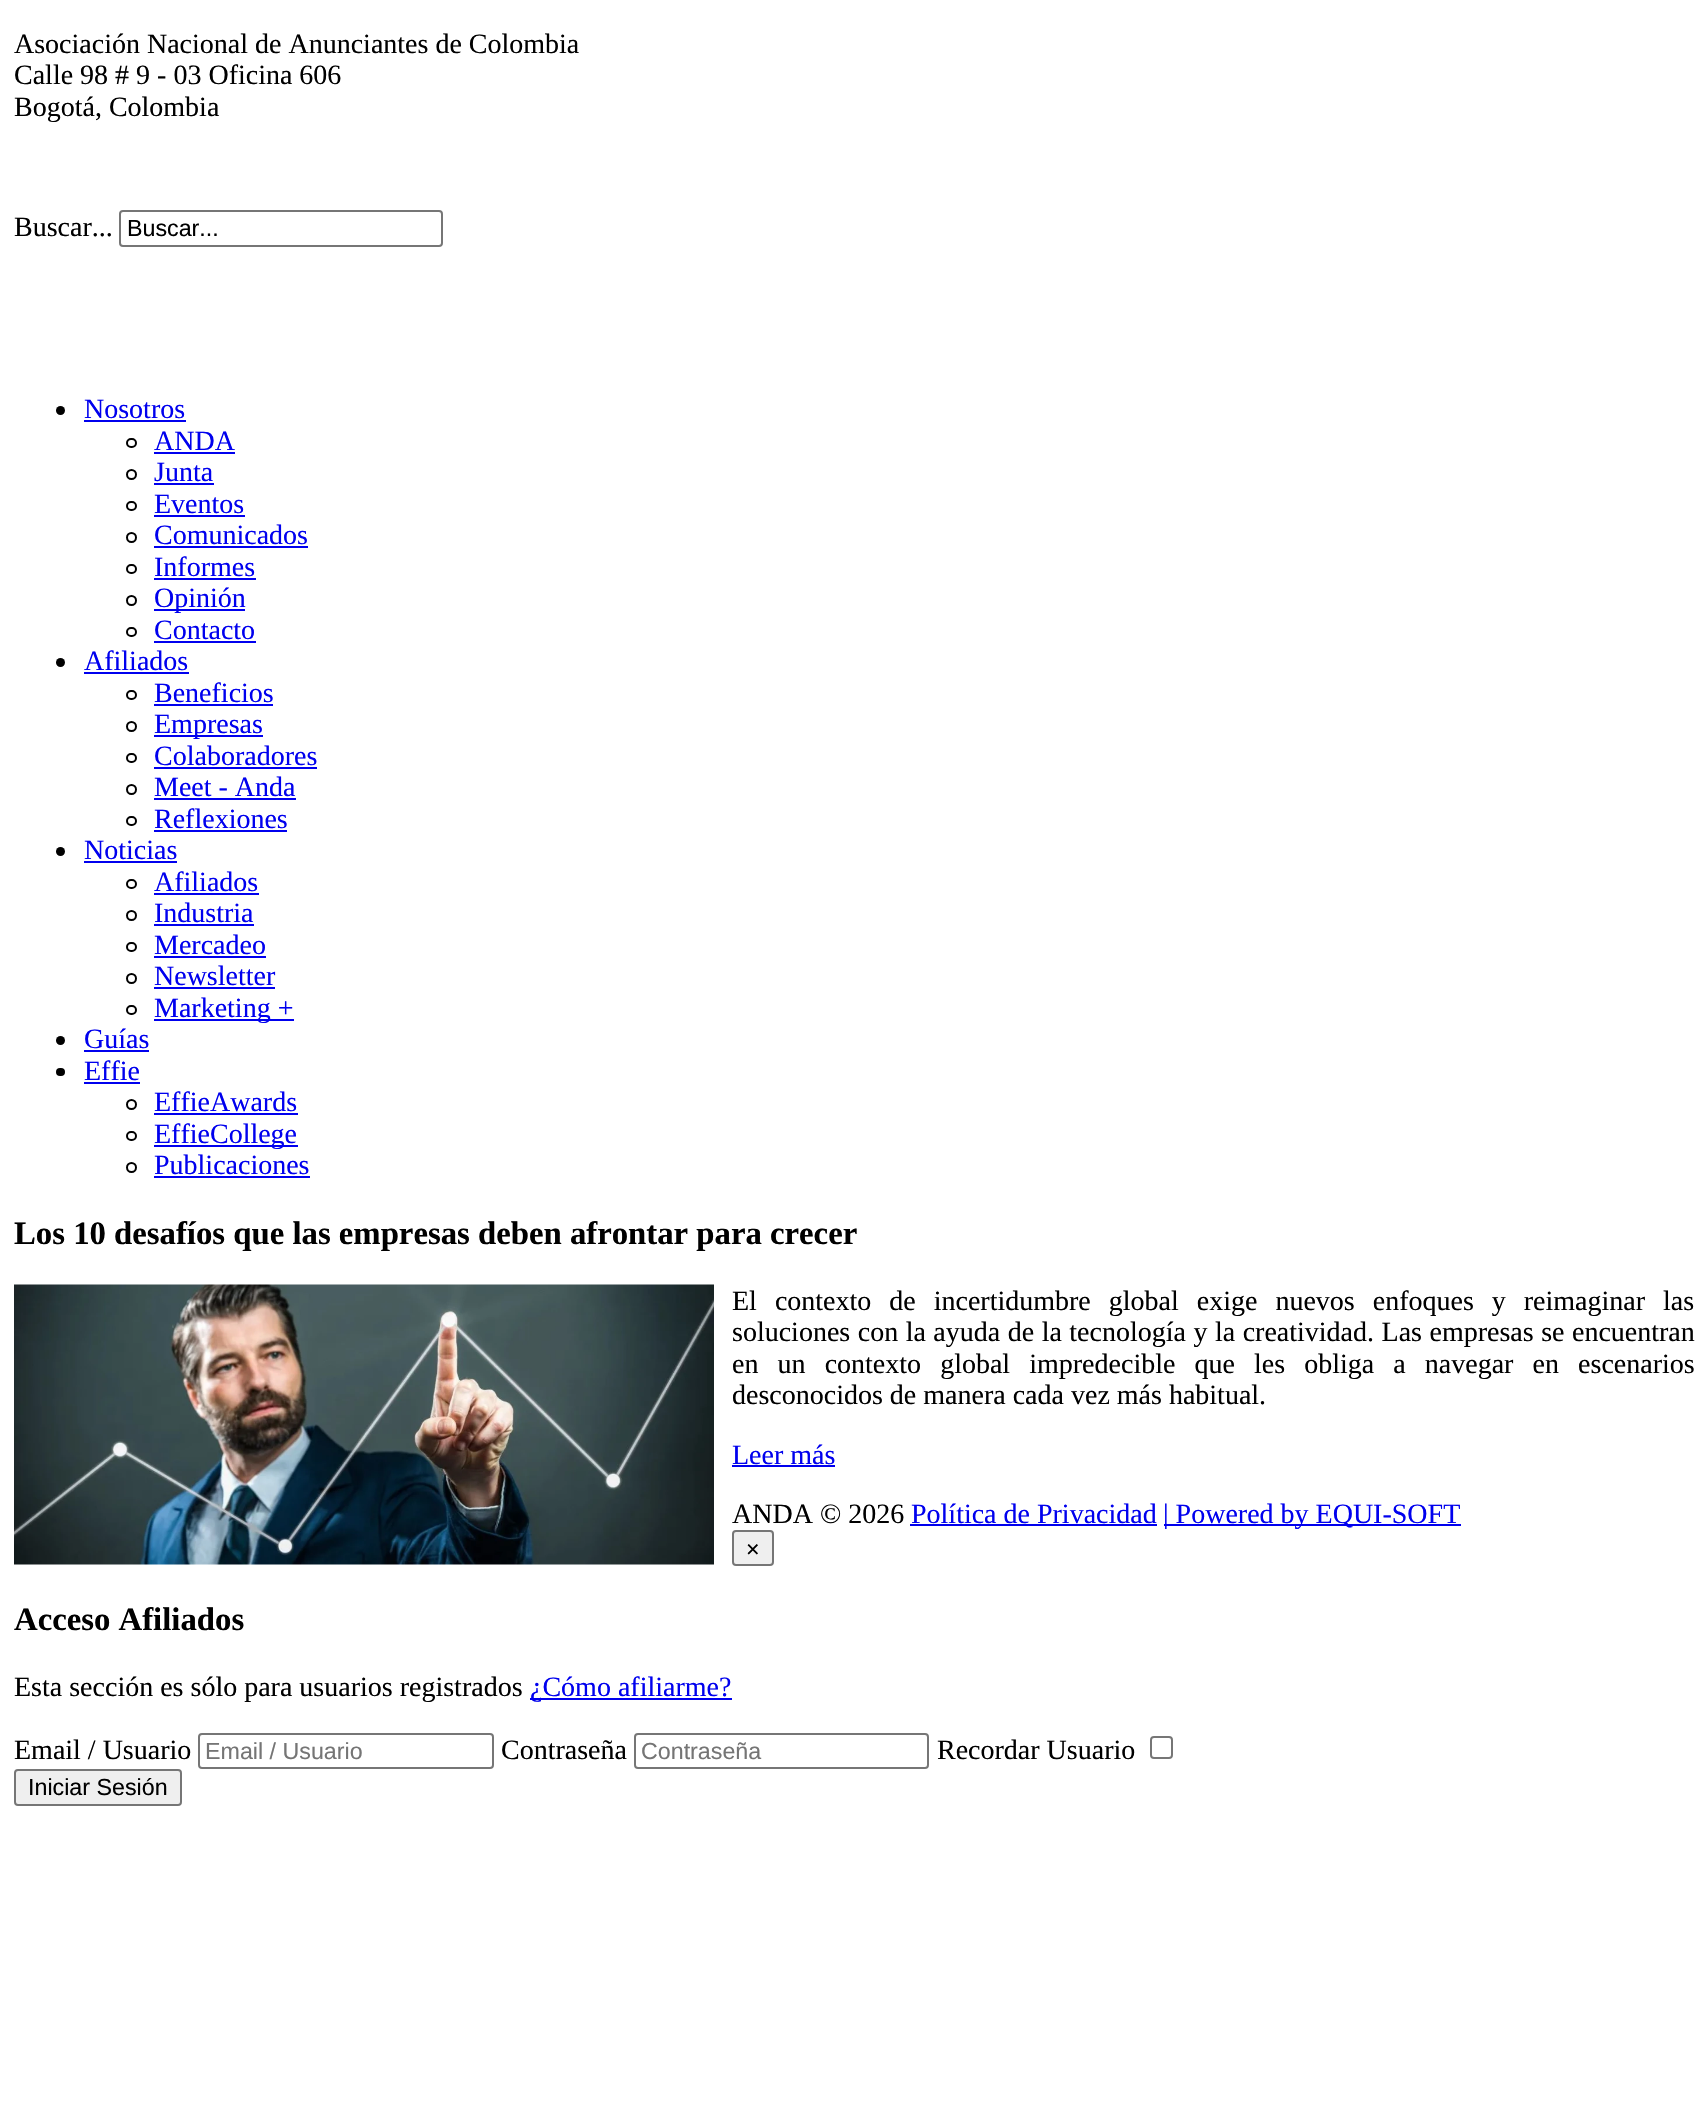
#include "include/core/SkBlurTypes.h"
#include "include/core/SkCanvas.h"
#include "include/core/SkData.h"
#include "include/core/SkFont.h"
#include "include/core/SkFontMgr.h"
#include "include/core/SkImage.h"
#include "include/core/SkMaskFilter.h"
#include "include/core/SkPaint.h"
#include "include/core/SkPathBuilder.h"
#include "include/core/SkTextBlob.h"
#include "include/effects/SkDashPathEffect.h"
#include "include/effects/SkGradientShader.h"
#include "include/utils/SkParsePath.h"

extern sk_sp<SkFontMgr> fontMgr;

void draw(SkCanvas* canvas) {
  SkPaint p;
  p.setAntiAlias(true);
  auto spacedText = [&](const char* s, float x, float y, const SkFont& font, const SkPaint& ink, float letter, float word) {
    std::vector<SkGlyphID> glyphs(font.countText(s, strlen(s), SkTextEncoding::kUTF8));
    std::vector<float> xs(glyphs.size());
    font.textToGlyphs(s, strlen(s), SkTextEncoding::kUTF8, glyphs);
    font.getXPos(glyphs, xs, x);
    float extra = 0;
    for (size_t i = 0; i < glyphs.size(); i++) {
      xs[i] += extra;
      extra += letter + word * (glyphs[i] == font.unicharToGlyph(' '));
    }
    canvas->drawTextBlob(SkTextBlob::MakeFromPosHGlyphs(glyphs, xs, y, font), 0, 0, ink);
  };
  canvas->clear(SK_ColorWHITE);
  p.setStyle(SkPaint::kStroke_Style);
  p.setStrokeWidth(2);
  p.setColor(SkColorSetRGB(118, 118, 118));
  canvas->drawRoundRect(SkRect::MakeLTRB(120, 211, 442, 246), 3, 3, p);
  p.setStyle(SkPaint::kFill_Style);
  p.setColor(SK_ColorBLACK);
  canvas->drawCircle(60.5f, 410.5f, 4.5f, p);
  p.setColor(SkColorSetRGB(0, 0, 238));
  canvas->drawRect(SkRect::MakeLTRB(84, 420, 186, 422), p);
  p.setStyle(SkPaint::kStroke_Style);
  p.setColor(SK_ColorBLACK);
  canvas->drawRoundRect(SkRect::MakeLTRB(127, 439, 136, 447), 4, 4, p);
  p.setStyle(SkPaint::kFill_Style);
  p.setColor(SkColorSetRGB(0, 0, 238));
  canvas->drawRect(SkRect::MakeLTRB(154, 452, 235, 454), p);
  p.setStyle(SkPaint::kStroke_Style);
  p.setColor(SK_ColorBLACK);
  canvas->drawCircle(131.5f, 474.5f, 4.5f, p);
  p.setStyle(SkPaint::kFill_Style);
  p.setColor(SkColorSetRGB(0, 0, 238));
  canvas->drawRect(SkRect::MakeLTRB(154, 483, 214, 485), p);
  p.setStyle(SkPaint::kStroke_Style);
  p.setColor(SK_ColorBLACK);
  canvas->drawRoundRect(SkRect::MakeLTRB(127, 502, 136, 510), 4, 4, p);
  p.setStyle(SkPaint::kFill_Style);
  p.setColor(SkColorSetRGB(0, 0, 238));
  canvas->drawRect(SkRect::MakeLTRB(154, 515, 245, 517), p);
  p.setStyle(SkPaint::kStroke_Style);
  p.setColor(SK_ColorBLACK);
  canvas->drawCircle(131.5f, 537.5f, 4.5f, p);
  p.setStyle(SkPaint::kFill_Style);
  p.setColor(SkColorSetRGB(0, 0, 238));
  canvas->drawRect(SkRect::MakeLTRB(154, 546, 308, 548), p);
  p.setStyle(SkPaint::kStroke_Style);
  p.setColor(SK_ColorBLACK);
  canvas->drawRoundRect(SkRect::MakeLTRB(127, 565, 136, 573), 4, 4, p);
  p.setStyle(SkPaint::kFill_Style);
  p.setColor(SkColorSetRGB(0, 0, 238));
  canvas->drawRect(SkRect::MakeLTRB(154, 578, 256, 580), p);
  p.setStyle(SkPaint::kStroke_Style);
  p.setColor(SK_ColorBLACK);
  canvas->drawCircle(131.5f, 600.5f, 4.5f, p);
  p.setStyle(SkPaint::kFill_Style);
  p.setColor(SkColorSetRGB(0, 0, 238));
  canvas->drawRect(SkRect::MakeLTRB(154, 609, 245, 611), p);
  p.setStyle(SkPaint::kStroke_Style);
  p.setColor(SK_ColorBLACK);
  canvas->drawRoundRect(SkRect::MakeLTRB(127, 628, 136, 636), 4, 4, p);
  p.setStyle(SkPaint::kFill_Style);
  p.setColor(SkColorSetRGB(0, 0, 238));
  canvas->drawRect(SkRect::MakeLTRB(154, 641, 256, 643), p);
  p.setColor(SK_ColorBLACK);
  canvas->drawCircle(60.5f, 662.5f, 4.5f, p);
  p.setColor(SkColorSetRGB(0, 0, 238));
  canvas->drawRect(SkRect::MakeLTRB(84, 672, 189, 674), p);
  p.setStyle(SkPaint::kStroke_Style);
  p.setColor(SK_ColorBLACK);
  canvas->drawRoundRect(SkRect::MakeLTRB(127, 691, 136, 699), 4, 4, p);
  p.setStyle(SkPaint::kFill_Style);
  p.setColor(SkColorSetRGB(0, 0, 238));
  canvas->drawRect(SkRect::MakeLTRB(154, 704, 273, 706), p);
  p.setStyle(SkPaint::kStroke_Style);
  p.setColor(SK_ColorBLACK);
  canvas->drawCircle(131.5f, 726.5f, 4.5f, p);
  p.setStyle(SkPaint::kFill_Style);
  p.setColor(SkColorSetRGB(0, 0, 238));
  canvas->drawRect(SkRect::MakeLTRB(154, 735, 263, 737), p);
  p.setStyle(SkPaint::kStroke_Style);
  p.setColor(SK_ColorBLACK);
  canvas->drawRoundRect(SkRect::MakeLTRB(127, 754, 136, 762), 4, 4, p);
  p.setStyle(SkPaint::kFill_Style);
  p.setColor(SkColorSetRGB(0, 0, 238));
  canvas->drawRect(SkRect::MakeLTRB(154, 767, 317, 769), p);
  p.setStyle(SkPaint::kStroke_Style);
  p.setColor(SK_ColorBLACK);
  canvas->drawCircle(131.5f, 789.5f, 4.5f, p);
  p.setStyle(SkPaint::kFill_Style);
  p.setColor(SkColorSetRGB(0, 0, 238));
  canvas->drawRect(SkRect::MakeLTRB(154, 798, 296, 800), p);
  p.setStyle(SkPaint::kStroke_Style);
  p.setColor(SK_ColorBLACK);
  canvas->drawRoundRect(SkRect::MakeLTRB(127, 817, 136, 825), 4, 4, p);
  p.setStyle(SkPaint::kFill_Style);
  p.setColor(SkColorSetRGB(0, 0, 238));
  canvas->drawRect(SkRect::MakeLTRB(154, 830, 287, 832), p);
  p.setColor(SK_ColorBLACK);
  canvas->drawCircle(60.5f, 851.5f, 4.5f, p);
  p.setColor(SkColorSetRGB(0, 0, 238));
  canvas->drawRect(SkRect::MakeLTRB(84, 861, 177, 863), p);
  p.setStyle(SkPaint::kStroke_Style);
  p.setColor(SK_ColorBLACK);
  canvas->drawRoundRect(SkRect::MakeLTRB(127, 880, 136, 888), 4, 4, p);
  p.setStyle(SkPaint::kFill_Style);
  p.setColor(SkColorSetRGB(0, 0, 238));
  canvas->drawRect(SkRect::MakeLTRB(154, 893, 259, 895), p);
  p.setStyle(SkPaint::kStroke_Style);
  p.setColor(SK_ColorBLACK);
  canvas->drawCircle(131.5f, 915.5f, 4.5f, p);
  p.setStyle(SkPaint::kFill_Style);
  p.setColor(SkColorSetRGB(0, 0, 238));
  canvas->drawRect(SkRect::MakeLTRB(154, 924, 254, 926), p);
  p.setStyle(SkPaint::kStroke_Style);
  p.setColor(SK_ColorBLACK);
  canvas->drawRoundRect(SkRect::MakeLTRB(127, 943, 136, 951), 4, 4, p);
  p.setStyle(SkPaint::kFill_Style);
  p.setColor(SkColorSetRGB(0, 0, 238));
  canvas->drawRect(SkRect::MakeLTRB(154, 956, 266, 958), p);
  p.setStyle(SkPaint::kStroke_Style);
  p.setColor(SK_ColorBLACK);
  canvas->drawCircle(131.5f, 978.5f, 4.5f, p);
  p.setStyle(SkPaint::kFill_Style);
  p.setColor(SkColorSetRGB(0, 0, 238));
  canvas->drawRect(SkRect::MakeLTRB(154, 987, 275, 989), p);
  p.setStyle(SkPaint::kStroke_Style);
  p.setColor(SK_ColorBLACK);
  canvas->drawRoundRect(SkRect::MakeLTRB(127, 1006, 136, 1014), 4, 4, p);
  p.setStyle(SkPaint::kFill_Style);
  p.setColor(SkColorSetRGB(0, 0, 238));
  canvas->drawRect(SkRect::MakeLTRB(154, 1019, 294, 1021), p);
  p.setColor(SK_ColorBLACK);
  canvas->drawCircle(60.5f, 1040.5f, 4.5f, p);
  p.setColor(SkColorSetRGB(0, 0, 238));
  canvas->drawRect(SkRect::MakeLTRB(84, 1050, 149, 1052), p);
  p.setColor(SK_ColorBLACK);
  canvas->drawRoundRect(SkRect::MakeLTRB(56, 1068, 65, 1076), 4, 4, p);
  p.setColor(SkColorSetRGB(0, 0, 238));
  canvas->drawRect(SkRect::MakeLTRB(84, 1082, 140, 1084), p);
  p.setStyle(SkPaint::kStroke_Style);
  p.setColor(SK_ColorBLACK);
  canvas->drawCircle(131.5f, 1104.5f, 4.5f, p);
  p.setStyle(SkPaint::kFill_Style);
  p.setColor(SkColorSetRGB(0, 0, 238));
  canvas->drawRect(SkRect::MakeLTRB(154, 1113, 298, 1115), p);
  p.setStyle(SkPaint::kStroke_Style);
  p.setColor(SK_ColorBLACK);
  canvas->drawRoundRect(SkRect::MakeLTRB(127, 1132, 136, 1140), 4, 4, p);
  p.setStyle(SkPaint::kFill_Style);
  p.setColor(SkColorSetRGB(0, 0, 238));
  canvas->drawRect(SkRect::MakeLTRB(154, 1145, 298, 1147), p);
  p.setStyle(SkPaint::kStroke_Style);
  p.setColor(SK_ColorBLACK);
  canvas->drawCircle(131.5f, 1167.5f, 4.5f, p);
  p.setStyle(SkPaint::kFill_Style);
  p.setColor(SkColorSetRGB(0, 0, 238));
  canvas->drawRect(SkRect::MakeLTRB(154, 1176, 310, 1178), p);
  canvas->drawImageRect(SkImages::DeferredFromEncodedData(SkData::MakeFromFileName("images/1.png")), SkRect::MakeLTRB(14, 1284, 714, 1565), SkSamplingOptions());
  canvas->drawRect(SkRect::MakeLTRB(732, 1465, 835, 1467), p);
  canvas->drawRect(SkRect::MakeLTRB(910, 1524, 1157, 1526), p);
  canvas->drawRect(SkRect::MakeLTRB(1164, 1524, 1461, 1526), p);
  p.setColor(SkColorSetRGB(239, 239, 239));
  canvas->drawRoundRect(SkRect::MakeLTRB(733, 1531, 773, 1565), 3, 3, p);
  p.setStyle(SkPaint::kStroke_Style);
  p.setColor(SkColorSetRGB(118, 118, 118));
  canvas->drawRoundRect(SkRect::MakeLTRB(733, 1531, 773, 1565), 3, 3, p);
  p.setStyle(SkPaint::kFill_Style);
  p.setColor(SkColorSetRGB(0, 0, 238));
  canvas->drawRect(SkRect::MakeLTRB(530, 1698, 732, 1700), p);
  p.setStyle(SkPaint::kStroke_Style);
  p.setColor(SkColorSetRGB(118, 118, 118));
  canvas->drawRoundRect(SkRect::MakeLTRB(199, 1734, 493, 1768), 3, 3, p);
  canvas->drawRoundRect(SkRect::MakeLTRB(635, 1734, 928, 1768), 3, 3, p);
  canvas->drawRoundRect(SkRect::MakeLTRB(1151, 1737, 1172, 1758), 3, 3, p);
  p.setStyle(SkPaint::kFill_Style);
  p.setColor(SkColorSetRGB(239, 239, 239));
  canvas->drawRoundRect(SkRect::MakeLTRB(15, 1770, 181, 1805), 3, 3, p);
  p.setStyle(SkPaint::kStroke_Style);
  p.setColor(SkColorSetRGB(118, 118, 118));
  canvas->drawRoundRect(SkRect::MakeLTRB(15, 1770, 181, 1805), 3, 3, p);
  SkFont font1(fontMgr->matchFamilyStyle("Liberation Serif", SkFontStyle::Normal()), 28);
  font1.setSubpixel(true);
  p.setStyle(SkPaint::kFill_Style);
  p.setColor(SK_ColorBLACK);
  canvas->drawString("Asociación Nacional de Anunciantes de Colombia", 14, 53, font1, p);
  canvas->drawString("Calle 98 # 9 - 03 Oficina 606", 14, 84, font1, p);
  canvas->drawString("Bogotá, Colombia", 14, 116, font1, p);
  canvas->drawString("Buscar...", 14, 236, font1, p);
  SkFont font2(fontMgr->matchFamilyStyle("Liberation Sans", SkFontStyle::Normal()), 23.25f);
  font2.setSubpixel(true);
  canvas->drawString("Buscar...", 127, 236, font2, p);
  p.setColor(SkColorSetRGB(0, 0, 238));
  canvas->drawString("Nosotros", 84, 418, font1, p);
  canvas->drawString("ANDA", 154, 450, font1, p);
  canvas->drawString("Junta", 154, 481, font1, p);
  canvas->drawString("Eventos", 154, 513, font1, p);
  canvas->drawString("Comunicados", 154, 544, font1, p);
  canvas->drawString("Informes", 154, 576, font1, p);
  canvas->drawString("Opinión", 154, 607, font1, p);
  canvas->drawString("Contacto", 154, 639, font1, p);
  canvas->drawString("Afiliados", 84, 670, font1, p);
  canvas->drawString("Beneficios", 154, 702, font1, p);
  canvas->drawString("Empresas", 154, 733, font1, p);
  canvas->drawString("Colaboradores", 154, 765, font1, p);
  canvas->drawString("Meet - Anda", 154, 796, font1, p);
  canvas->drawString("Reflexiones", 154, 828, font1, p);
  canvas->drawString("Noticias", 84, 859, font1, p);
  canvas->drawString("Afiliados", 154, 891, font1, p);
  canvas->drawString("Industria", 154, 922, font1, p);
  canvas->drawString("Mercadeo", 154, 954, font1, p);
  canvas->drawString("Newsletter", 154, 985, font1, p);
  canvas->drawString("Marketing +", 154, 1017, font1, p);
  canvas->drawString("Guías", 84, 1048, font1, p);
  canvas->drawString("Effie", 84, 1080, font1, p);
  canvas->drawString("EffieAwards", 154, 1111, font1, p);
  canvas->drawString("EffieCollege", 154, 1143, font1, p);
  canvas->drawString("Publicaciones", 154, 1174, font1, p);
  SkFont font3(fontMgr->matchFamilyStyle("Liberation Serif", SkFontStyle::Bold()), 32.75f);
  font3.setSubpixel(true);
  p.setColor(SK_ColorBLACK);
  canvas->drawString("Los 10 desafíos que las empresas deben afrontar para crecer", 14, 1244, font3, p);
  spacedText("El contexto de incertidumbre global exige nuevos enfoques y reimaginar las", 732, 1310, font1, p, 0, 11);
  spacedText("soluciones con la ayuda de la tecnología y la creatividad. Las empresas se encuentran", 732, 1341, font1, p, 0, 0.5f);
  spacedText("en un contexto global impredecible que les obliga a navegar en escenarios", 732, 1373, font1, p, 0, 12.1f);
  canvas->drawString("desconocidos de manera cada vez más habitual.", 732, 1404, font1, p);
  p.setColor(SkColorSetRGB(0, 0, 238));
  canvas->drawString("Leer más", 732, 1464, font1, p);
  p.setColor(SK_ColorBLACK);
  canvas->drawString("ANDA © 2026", 732, 1523, font1, p);
  p.setColor(SkColorSetRGB(0, 0, 238));
  canvas->drawString("Política de Privacidad", 911, 1523, font1, p);
  canvas->drawString("| Powered by EQUI-SOFT", 1163, 1523, font1, p);
  p.setColor(SK_ColorBLACK);
  canvas->drawString("×", 746, 1557, font2, p);
  canvas->drawString("Acceso Afiliados", 14, 1630, font3, p);
  canvas->drawString("Esta sección es sólo para usuarios registrados", 14, 1696, font1, p);
  p.setColor(SkColorSetRGB(0, 0, 238));
  canvas->drawString("¿Cómo afiliarme?", 530, 1696, font1, p);
  p.setColor(SK_ColorBLACK);
  canvas->drawString("Email / Usuario", 14, 1759, font1, p);
  p.setColor(SkColorSetRGB(117, 117, 117));
  canvas->drawString("Email / Usuario", 205, 1759, font2, p);
  p.setColor(SK_ColorBLACK);
  canvas->drawString("Contraseña", 501, 1759, font1, p);
  p.setColor(SkColorSetRGB(117, 117, 117));
  canvas->drawString("Contraseña", 641, 1759, font2, p);
  p.setColor(SK_ColorBLACK);
  canvas->drawString("Recordar Usuario", 937, 1759, font1, p);
  canvas->drawString("Iniciar Sesión", 28, 1795, font2, p);
}
